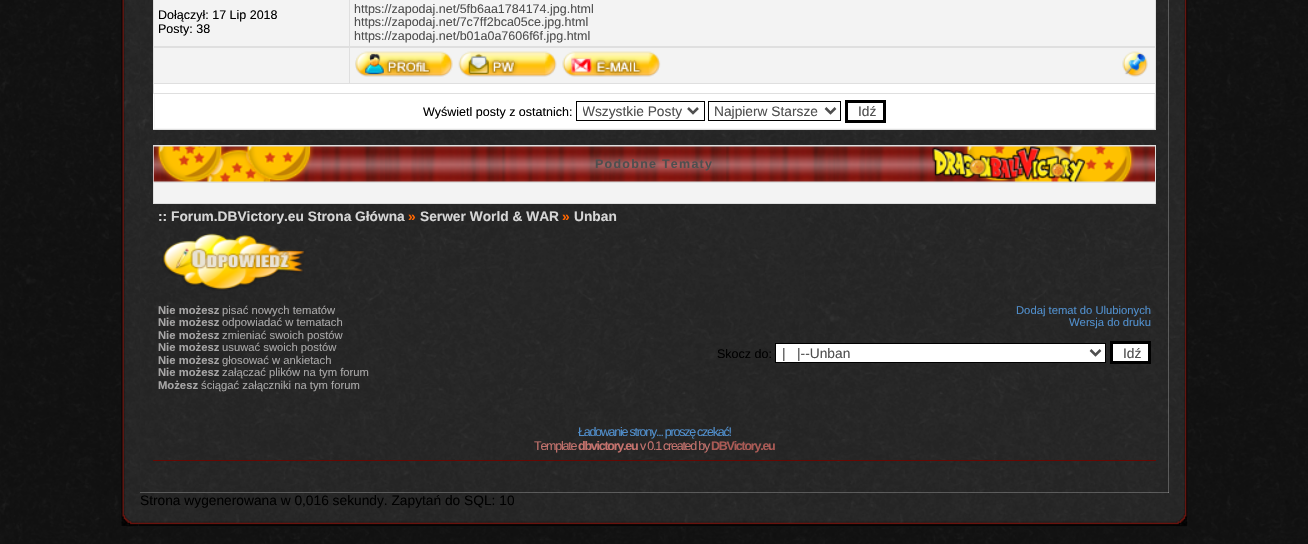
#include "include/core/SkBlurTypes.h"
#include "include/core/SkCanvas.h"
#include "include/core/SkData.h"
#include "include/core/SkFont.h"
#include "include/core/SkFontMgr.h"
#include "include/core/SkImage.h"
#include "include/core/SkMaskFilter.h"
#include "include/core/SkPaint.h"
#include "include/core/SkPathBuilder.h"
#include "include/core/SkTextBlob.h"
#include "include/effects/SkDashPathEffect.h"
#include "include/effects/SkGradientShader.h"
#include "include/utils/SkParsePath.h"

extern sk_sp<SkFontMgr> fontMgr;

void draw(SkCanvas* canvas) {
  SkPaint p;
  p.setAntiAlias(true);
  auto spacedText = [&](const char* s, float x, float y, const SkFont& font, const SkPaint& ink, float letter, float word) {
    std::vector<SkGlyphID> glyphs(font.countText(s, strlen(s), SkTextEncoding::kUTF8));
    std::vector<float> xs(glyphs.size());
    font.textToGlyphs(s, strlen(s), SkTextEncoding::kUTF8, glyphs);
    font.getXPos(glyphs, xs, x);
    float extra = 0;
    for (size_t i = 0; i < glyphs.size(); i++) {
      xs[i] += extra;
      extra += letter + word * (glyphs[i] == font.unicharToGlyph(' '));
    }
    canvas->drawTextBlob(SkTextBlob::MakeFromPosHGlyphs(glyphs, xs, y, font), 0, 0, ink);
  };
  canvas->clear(SK_ColorWHITE);
  canvas->drawImageRect(SkImages::DeferredFromEncodedData(SkData::MakeFromFileName("images/1.png")), SkRect::MakeLTRB(0, 0, 1308, 544), SkSamplingOptions());
  canvas->drawImageRect(SkImages::DeferredFromEncodedData(SkData::MakeFromFileName("images/2.png")), SkRect::MakeLTRB(121, 0, 1188, 527), SkSamplingOptions());
  canvas->drawImageRect(SkImages::DeferredFromEncodedData(SkData::MakeFromFileName("images/3.png")), SkRect::MakeLTRB(121, 0, 125, 509), SkSamplingOptions());
  p.setColor(SK_ColorWHITE);
  canvas->drawRect(SkRect::MakeLTRB(140, 0, 1169, 493), p);
  canvas->drawImageRect(SkImages::DeferredFromEncodedData(SkData::MakeFromFileName("images/4.png")), SkRect::MakeLTRB(140, 0, 1169, 493), SkSamplingOptions());
  p.setColor(SkColorSetRGB(223, 223, 223));
  canvas->drawRect(SkRect::MakeLTRB(153, 0, 1156, 130), p);
  p.setColor(SkColorSetRGB(243, 243, 243));
  canvas->drawRect(SkRect::MakeLTRB(154, 0, 349, 46), p);
  canvas->drawRect(SkRect::MakeLTRB(350, 0, 1155, 46), p);
  canvas->drawRect(SkRect::MakeLTRB(154, 48, 349, 83), p);
  canvas->drawRect(SkRect::MakeLTRB(350, 48, 1155, 83), p);
  canvas->drawImageRect(SkImages::DeferredFromEncodedData(SkData::MakeFromFileName("images/5.png")), SkRect::MakeLTRB(355, 51, 453, 77), SkSamplingOptions());
  canvas->drawImageRect(SkImages::DeferredFromEncodedData(SkData::MakeFromFileName("images/6.png")), SkRect::MakeLTRB(458, 51, 557, 77), SkSamplingOptions());
  canvas->drawImageRect(SkImages::DeferredFromEncodedData(SkData::MakeFromFileName("images/7.png")), SkRect::MakeLTRB(562, 51, 661, 77), SkSamplingOptions());
  canvas->drawImageRect(SkImages::DeferredFromEncodedData(SkData::MakeFromFileName("images/8.png")), SkRect::MakeLTRB(1122, 51, 1148, 77), SkSamplingOptions());
  p.setColor(SK_ColorWHITE);
  canvas->drawRect(SkRect::MakeLTRB(154, 84, 1155, 93), p);
  canvas->drawRect(SkRect::MakeLTRB(153, 94, 1154, 129), p);
  p.setColor(SkColorSetRGB(247, 247, 247));
  canvas->drawRect(SkRect::MakeLTRB(1154, 94, 1155, 129), p);
  canvas->drawRect(SkRect::MakeLTRB(154, 128, 1155, 129), p);
  canvas->drawRect(SkRect::MakeLTRB(154, 94, 155, 129), p);
  p.setStyle(SkPaint::kStroke_Style);
  p.setStrokeWidth(1);
  p.setColor(SK_ColorBLACK);
  canvas->drawRect(SkRect::MakeLTRB(576.5f, 101.5f, 704.5f, 120.5f), p);
  p.setStrokeWidth(2.5f);
  p.setColor(SkColorSetRGB(79, 79, 79));
  canvas->drawPath(SkPathBuilder().moveTo(688, 108).lineTo(693, 113).lineTo(698, 108).detach(), p);
  p.setStrokeWidth(1);
  p.setColor(SK_ColorBLACK);
  canvas->drawRect(SkRect::MakeLTRB(708.5f, 101.5f, 840.5f, 120.5f), p);
  p.setStrokeWidth(2.5f);
  p.setColor(SkColorSetRGB(79, 79, 79));
  canvas->drawPath(SkPathBuilder().moveTo(825.5f, 108).lineTo(830.5f, 113).lineTo(835.5f, 108).detach(), p);
  p.setStrokeWidth(3);
  p.setColor(SK_ColorBLACK);
  canvas->drawRect(SkRect::MakeLTRB(846.5f, 101.5f, 884.5f, 121.5f), p);
  p.setStyle(SkPaint::kFill_Style);
  p.setColor(SkColorSetRGB(223, 223, 223));
  canvas->drawRect(SkRect::MakeLTRB(153, 145, 1156, 204), p);
  canvas->drawImageRect(SkImages::DeferredFromEncodedData(SkData::MakeFromFileName("images/9.png")), SkRect::MakeLTRB(153, 146, 1155, 182), SkSamplingOptions());
  p.setColor(SkColorSetRGB(243, 243, 243));
  canvas->drawRect(SkRect::MakeLTRB(154, 183, 1155, 203), p);
  canvas->drawImageRect(SkImages::DeferredFromEncodedData(SkData::MakeFromFileName("images/10.png")), SkRect::MakeLTRB(162, 233, 305, 291), SkSamplingOptions());
  p.setColor(SK_ColorWHITE);
  canvas->drawRect(SkRect::MakeLTRB(775.5f, 343.5f, 1105.5f, 362.5f), p);
  p.setStyle(SkPaint::kStroke_Style);
  p.setStrokeWidth(1);
  p.setColor(SK_ColorBLACK);
  canvas->drawRect(SkRect::MakeLTRB(775.5f, 343.5f, 1105.5f, 362.5f), p);
  p.setStrokeWidth(2.5f);
  p.setColor(SkColorSetRGB(79, 79, 79));
  canvas->drawPath(SkPathBuilder().moveTo(1090.5f, 350).lineTo(1095.5f, 355).lineTo(1100.5f, 350).detach(), p);
  p.setStyle(SkPaint::kFill_Style);
  p.setColor(SK_ColorWHITE);
  canvas->drawRect(SkRect::MakeLTRB(1111.5f, 342.5f, 1149.5f, 362.5f), p);
  p.setStyle(SkPaint::kStroke_Style);
  p.setStrokeWidth(3);
  p.setColor(SK_ColorBLACK);
  canvas->drawRect(SkRect::MakeLTRB(1111.5f, 342.5f, 1149.5f, 362.5f), p);
  p.setStyle(SkPaint::kFill_Style);
  p.setColor(SkColorSetRGB(103, 8, 2));
  canvas->drawRect(SkRect::MakeLTRB(153, 460, 1156, 461), p);
  canvas->drawImageRect(SkImages::DeferredFromEncodedData(SkData::MakeFromFileName("images/11.png")), SkRect::MakeLTRB(1184, 0, 1188, 509), SkSamplingOptions());
  canvas->drawImageRect(SkImages::DeferredFromEncodedData(SkData::MakeFromFileName("images/12.png")), SkRect::MakeLTRB(121, 509, 139, 527), SkSamplingOptions());
  canvas->drawImageRect(SkImages::DeferredFromEncodedData(SkData::MakeFromFileName("images/13.png")), SkRect::MakeLTRB(138, 521, 1170, 527), SkSamplingOptions());
  canvas->drawImageRect(SkImages::DeferredFromEncodedData(SkData::MakeFromFileName("images/14.png")), SkRect::MakeLTRB(1170, 509, 1188, 527), SkSamplingOptions());
  SkFont font1(fontMgr->matchFamilyStyle("Liberation Sans", SkFontStyle::Normal()), 12.5f);
  font1.setSubpixel(true);
  p.setColor(SK_ColorBLACK);
  canvas->drawString("Dołączył: 17 Lip 2018", 158, 19, font1, p);
  canvas->drawString("Posty: 38", 158, 33, font1, p);
  p.setColor(SkColorSetRGB(79, 79, 79));
  canvas->drawString("https://zapodaj.net/5fb6aa1784174.jpg.html", 354, 13, font1, p);
  canvas->drawString("https://zapodaj.net/7c7ff2bca05ce.jpg.html", 354, 26, font1, p);
  canvas->drawString("https://zapodaj.net/b01a0a7606f6f.jpg.html", 354, 40, font1, p);
  p.setColor(SK_ColorBLACK);
  canvas->drawString("Wyświetl posty z ostatnich:", 423, 116, font1, p);
  canvas->save();
  canvas->clipRect(SkRect::MakeLTRB(583, 103, 684, 120));
  SkFont font2(fontMgr->matchFamilyStyle("Liberation Sans", SkFontStyle::Normal()), 13.75f);
  font2.setSubpixel(true);
  p.setColor(SkColorSetRGB(79, 79, 79));
  canvas->drawString("Wszystkie Posty", 582, 116, font2, p);
  canvas->restore();
  canvas->drawString("Najpierw Starsze", 714, 116, font2, p);
  canvas->drawString("Idź", 858, 116, font2, p);
  SkFont font3(fontMgr->matchFamilyStyle("Liberation Sans", SkFontStyle::Bold()), 12.5f);
  font3.setSubpixel(true);
  spacedText("Podobne Tematy", 595, 168, font3, p, 1.25f, 0);
  SkFont font4(fontMgr->matchFamilyStyle("Liberation Sans", SkFontStyle::Bold()), 13.75f);
  font4.setSubpixel(true);
  p.setColor(SkColorSetRGB(214, 214, 214));
  canvas->drawString(":: Forum.DBVictory.eu Strona Główna", 158, 221, font4, p);
  p.setColor(SkColorSetRGB(255, 102, 0));
  canvas->drawString("»", 408, 221, font4, p);
  p.setColor(SkColorSetRGB(214, 214, 214));
  canvas->drawString("Serwer World & WAR", 420, 221, font4, p);
  p.setColor(SkColorSetRGB(255, 102, 0));
  canvas->drawString("»", 562, 221, font4, p);
  p.setColor(SkColorSetRGB(214, 214, 214));
  canvas->drawString("Unban", 574, 221, font4, p);
  SkFont font5(fontMgr->matchFamilyStyle("Liberation Sans", SkFontStyle::Bold()), 11.25f);
  font5.setSubpixel(true);
  p.setColor(SkColorSetRGB(167, 166, 166));
  canvas->drawString("Nie możesz", 158, 314, font5, p);
  SkFont font6(fontMgr->matchFamilyStyle("Liberation Sans", SkFontStyle::Normal()), 11.25f);
  font6.setSubpixel(true);
  canvas->drawString("pisać nowych tematów", 222, 314, font6, p);
  canvas->drawString("Nie możesz", 158, 326, font5, p);
  canvas->drawString("odpowiadać w tematach", 222, 326, font6, p);
  canvas->drawString("Nie możesz", 158, 339, font5, p);
  canvas->drawString("zmieniać swoich postów", 222, 339, font6, p);
  canvas->drawString("Nie możesz", 158, 351, font5, p);
  canvas->drawString("usuwać swoich postów", 222, 351, font6, p);
  canvas->drawString("Nie możesz", 158, 364, font5, p);
  canvas->drawString("głosować w ankietach", 222, 364, font6, p);
  canvas->drawString("Nie możesz", 158, 376, font5, p);
  canvas->drawString("załączać plików na tym forum", 222, 376, font6, p);
  canvas->drawString("Możesz", 158, 389, font5, p);
  canvas->drawString("ściągać załączniki na tym forum", 201, 389, font6, p);
  p.setColor(SkColorSetRGB(80, 142, 203));
  canvas->drawString("Dodaj temat do Ulubionych", 1016, 314, font6, p);
  canvas->drawString("Wersja do druku", 1069, 326, font6, p);
  p.setColor(SK_ColorBLACK);
  canvas->drawString("Skocz do:", 717, 358, font1, p);
  p.setColor(SkColorSetRGB(79, 79, 79));
  canvas->drawString("|   |--Unban", 782, 358, font2, p);
  canvas->drawString("Idź", 1123, 358, font2, p);
  p.setColor(SkColorSetRGB(80, 142, 203));
  spacedText("Ładowanie strony... proszę czekać!", 578, 436, font1, p, -1.25f, 0);
  p.setColor(SkColorSetRGB(196, 114, 109));
  spacedText("Template", 534, 450, font1, p, -1.25f, 0);
  spacedText("dbvictory.eu", 578, 450, font3, p, -1.25f, 0);
  spacedText("v 0.1 created by", 640, 450, font1, p, -1.25f, 0);
  p.setColor(SkColorSetRGB(169, 90, 85));
  spacedText("DBVictory.eu", 711, 450, font3, p, -1.25f, 0);
  p.setColor(SK_ColorBLACK);
  canvas->drawString("Strona wygenerowana w 0,016 sekundy. Zapytań do SQL: 10", 140, 505, font2, p);
}
